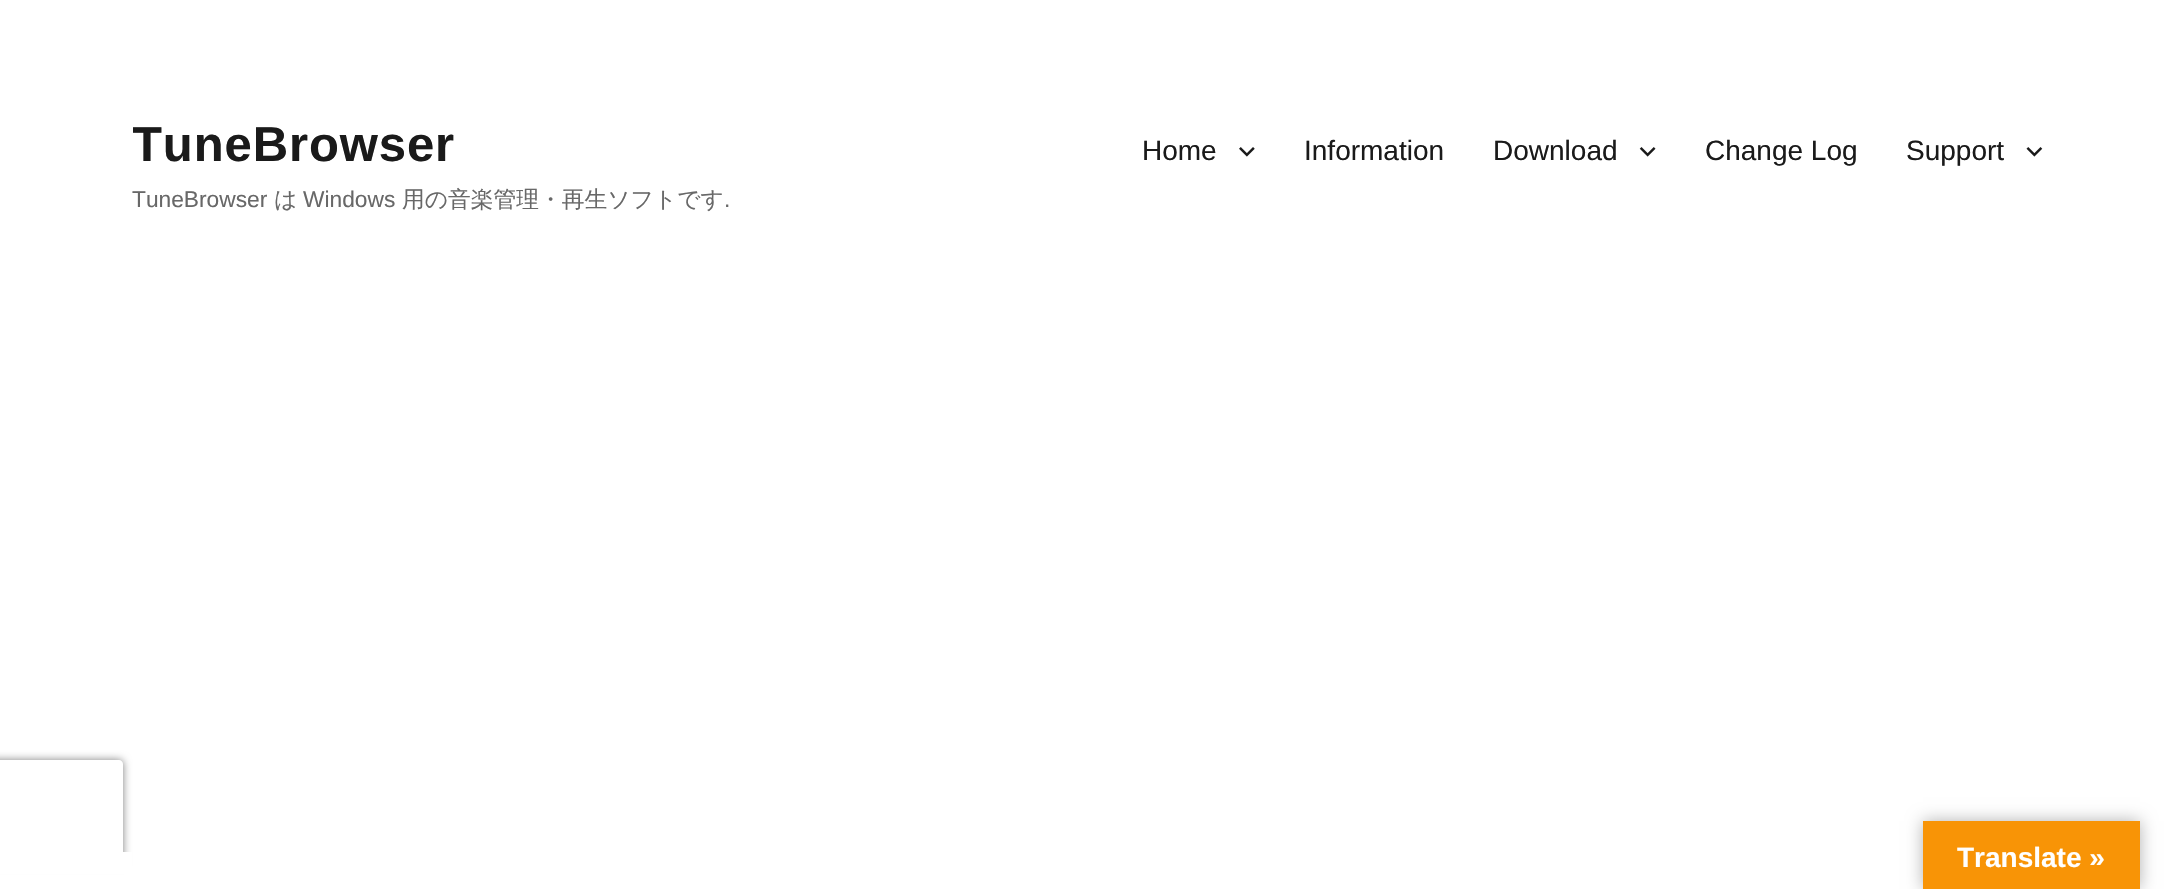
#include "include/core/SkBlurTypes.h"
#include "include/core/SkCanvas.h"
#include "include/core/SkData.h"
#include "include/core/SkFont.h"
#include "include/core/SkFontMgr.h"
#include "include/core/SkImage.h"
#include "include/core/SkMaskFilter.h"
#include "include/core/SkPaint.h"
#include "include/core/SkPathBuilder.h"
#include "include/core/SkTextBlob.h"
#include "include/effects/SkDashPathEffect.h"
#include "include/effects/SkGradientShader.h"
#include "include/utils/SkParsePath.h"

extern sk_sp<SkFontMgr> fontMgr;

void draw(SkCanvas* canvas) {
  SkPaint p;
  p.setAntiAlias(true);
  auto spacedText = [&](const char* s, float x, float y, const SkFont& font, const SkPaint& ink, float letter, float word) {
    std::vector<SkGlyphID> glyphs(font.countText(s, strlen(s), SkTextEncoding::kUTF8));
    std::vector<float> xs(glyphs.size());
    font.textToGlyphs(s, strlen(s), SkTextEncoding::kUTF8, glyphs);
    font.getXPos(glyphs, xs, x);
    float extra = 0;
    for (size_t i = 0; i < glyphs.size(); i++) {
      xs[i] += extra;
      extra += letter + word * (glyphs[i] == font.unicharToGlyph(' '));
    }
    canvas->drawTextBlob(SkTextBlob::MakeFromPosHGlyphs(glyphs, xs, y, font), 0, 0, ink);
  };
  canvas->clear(SK_ColorWHITE);
  canvas->drawImageRect(SkImages::DeferredFromEncodedData(SkData::MakeFromFileName("images/1.png")), SkRect::MakeLTRB(1239, 147, 1255, 157), SkSamplingOptions());
  canvas->drawImageRect(SkImages::DeferredFromEncodedData(SkData::MakeFromFileName("images/2.png")), SkRect::MakeLTRB(1639, 147, 1656, 157), SkSamplingOptions());
  canvas->drawImageRect(SkImages::DeferredFromEncodedData(SkData::MakeFromFileName("images/3.png")), SkRect::MakeLTRB(2026, 147, 2043, 157), SkSamplingOptions());
  canvas->save();
  canvas->clipPath(SkPathBuilder(SkPathFillType::kEvenOdd).moveTo(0, 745).lineTo(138, 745).lineTo(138, 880).lineTo(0, 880).close().moveTo(-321, 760).lineTo(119, 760).cubicTo(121, 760, 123, 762, 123, 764).lineTo(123, 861).cubicTo(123, 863, 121, 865, 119, 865).lineTo(-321, 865).cubicTo(-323, 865, -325, 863, -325, 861).lineTo(-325, 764).cubicTo(-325, 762, -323, 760, -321, 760).close().detach(), true);
  p.setColor(SkColorSetRGB(128, 128, 128));
  p.setMaskFilter(SkMaskFilter::MakeBlur(kNormal_SkBlurStyle, 4.5f));
  canvas->drawRoundRect(SkRect::MakeLTRB(-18, 760, 123, 865), 4, 4, p);
  p.setMaskFilter(nullptr);
  canvas->restore();
  p.setColor(SK_ColorWHITE);
  canvas->drawRect(SkRect::MakeLTRB(0, 852, 132, 874), p);
  p.setColor(SkColorSetARGB(77, 0, 0, 0));
  p.setMaskFilter(SkMaskFilter::MakeBlur(kNormal_SkBlurStyle, 8));
  canvas->drawRect(SkRect::MakeLTRB(1923, 821, 2140, 889), p);
  p.setMaskFilter(nullptr);
  p.setColor(SkColorSetRGB(248, 148, 6));
  canvas->drawRect(SkRect::MakeLTRB(1923, 821, 2140, 889), p);
  canvas->save();
  canvas->clipRect(SkRect::MakeLTRB(133, 114, 730, 212));
  SkFont font1(fontMgr->matchFamilyStyle("Liberation Sans", SkFontStyle::Bold()), 49);
  font1.setSubpixel(true);
  p.setColor(SkColorSetRGB(26, 26, 26));
  spacedText("TuneBrowser", 132, 161, font1, p, 0.9f, 0);
  canvas->restore();
  SkFont font2(fontMgr->matchFamilyStyle("Liberation Sans", SkFontStyle::Normal()), 22.75f);
  font2.setSubpixel(true);
  p.setColor(SkColorSetRGB(104, 104, 104));
  canvas->drawString("TuneBrowser", 132, 207, font2, p);
  SkFont font3(fontMgr->matchFamilyStyle("WenQuanYi Zen Hei", SkFontStyle(500, SkFontStyle::kNormal_Width, SkFontStyle::kUpright_Slant)), 22.75f);
  font3.setSubpixel(true);
  canvas->drawString("は", 274, 207, font3, p);
  canvas->drawString("Windows", 303, 207, font2, p);
  canvas->drawString("用の音楽管理・再生ソフトです", 402, 207, font3, p);
  canvas->drawString(".", 724, 207, font2, p);
  SkFont font4(fontMgr->matchFamilyStyle("Liberation Sans", SkFontStyle::Normal()), 28);
  font4.setSubpixel(true);
  p.setColor(SkColorSetRGB(26, 26, 26));
  canvas->drawString("Home", 1142, 160, font4, p);
  canvas->drawString("Information", 1304, 160, font4, p);
  canvas->drawString("Download", 1493, 160, font4, p);
  canvas->drawString("Change Log", 1705, 160, font4, p);
  canvas->drawString("Support", 1906, 160, font4, p);
  SkFont font5(fontMgr->matchFamilyStyle("Liberation Sans", SkFontStyle::Bold()), 28);
  font5.setSubpixel(true);
  p.setColor(SK_ColorWHITE);
  canvas->drawString("Translate »", 1957, 867, font5, p);
}
